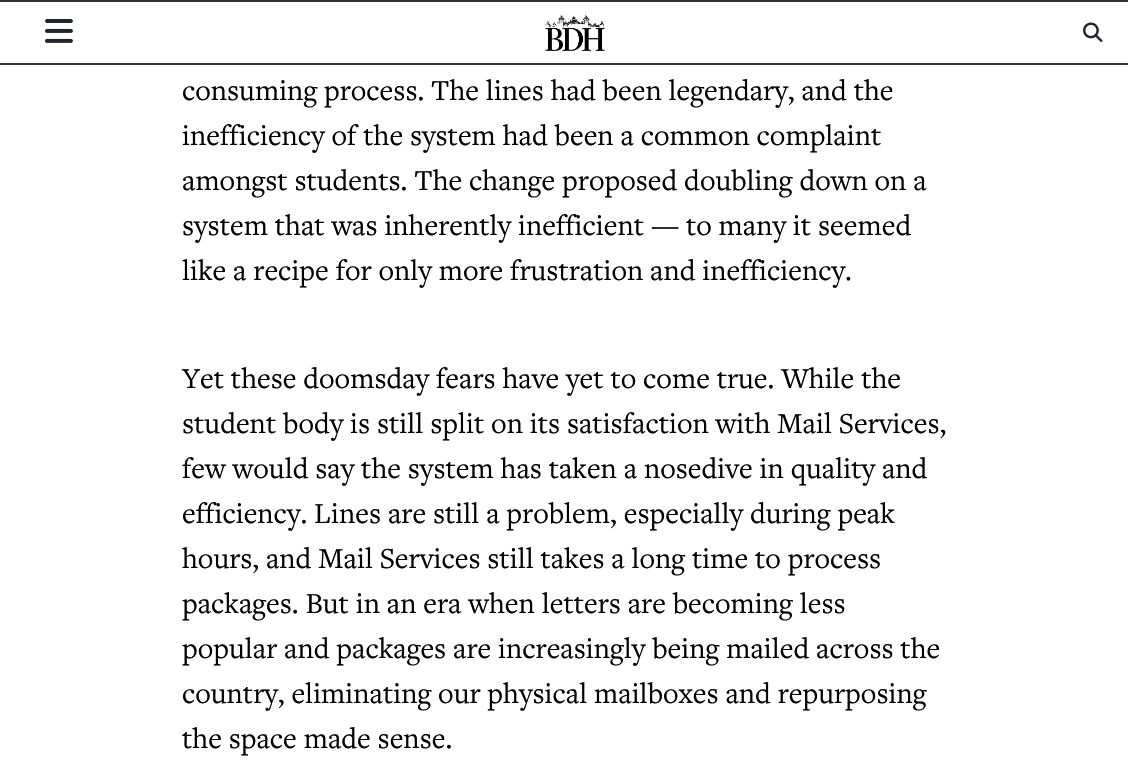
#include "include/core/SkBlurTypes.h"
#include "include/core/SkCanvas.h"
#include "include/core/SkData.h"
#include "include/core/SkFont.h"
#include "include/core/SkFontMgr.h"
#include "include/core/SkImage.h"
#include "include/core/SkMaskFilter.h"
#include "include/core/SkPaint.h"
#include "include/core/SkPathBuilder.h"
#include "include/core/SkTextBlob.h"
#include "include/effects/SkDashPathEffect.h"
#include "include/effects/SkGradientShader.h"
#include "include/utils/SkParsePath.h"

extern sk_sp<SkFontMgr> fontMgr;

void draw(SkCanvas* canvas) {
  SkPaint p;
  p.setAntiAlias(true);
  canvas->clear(SK_ColorWHITE);
  p.setColor(SkColorSetRGB(51, 51, 51));
  canvas->drawRect(SkRect::MakeLTRB(0, 0, 1128, 2), p);
  canvas->drawRect(SkRect::MakeLTRB(0, 63, 1128, 65), p);
  canvas->drawImageRect(SkImages::DeferredFromEncodedData(SkData::MakeFromFileName("images/1.png")), SkRect::MakeLTRB(45, 19, 73, 43), SkSamplingOptions());
  canvas->drawImageRect(SkImages::DeferredFromEncodedData(SkData::MakeFromFileName("images/2.png")), SkRect::MakeLTRB(545, 15, 605, 51), SkSamplingOptions());
  canvas->drawImageRect(SkImages::DeferredFromEncodedData(SkData::MakeFromFileName("images/3.png")), SkRect::MakeLTRB(1083, 22, 1103, 42), SkSamplingOptions());
  SkFont font1(fontMgr->matchFamilyStyle("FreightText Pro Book", SkFontStyle::Normal()), 30);
  font1.setSubpixel(true);
  p.setColor(SkColorSetRGB(1, 1, 1));
  canvas->drawString("consuming process. The lines had been legendary, and the", 182, 100, font1, p);
  canvas->drawString("inefficiency of the system had been a common complaint", 182, 145, font1, p);
  canvas->drawString("amongst students. The change proposed doubling down on a", 182, 190, font1, p);
  canvas->drawString("system that was inherently inefficient — to many it seemed", 182, 235, font1, p);
  canvas->drawString("like a recipe for only more frustration and inefficiency.", 182, 280, font1, p);
  canvas->drawString("Yet these doomsday fears have yet to come true. While the", 182, 388, font1, p);
  canvas->drawString("student body is still split on its satisfaction with Mail Services,", 182, 433, font1, p);
  canvas->drawString("few would say the system has taken a nosedive in quality and", 182, 478, font1, p);
  canvas->drawString("efficiency. Lines are still a problem, especially during peak", 182, 523, font1, p);
  canvas->drawString("hours, and Mail Services still takes a long time to process", 182, 568, font1, p);
  canvas->drawString("packages. But in an era when letters are becoming less", 182, 613, font1, p);
  canvas->drawString("popular and packages are increasingly being mailed across the", 182, 658, font1, p);
  canvas->drawString("country, eliminating our physical mailboxes and repurposing", 182, 703, font1, p);
  canvas->drawString("the space made sense.", 182, 748, font1, p);
}
